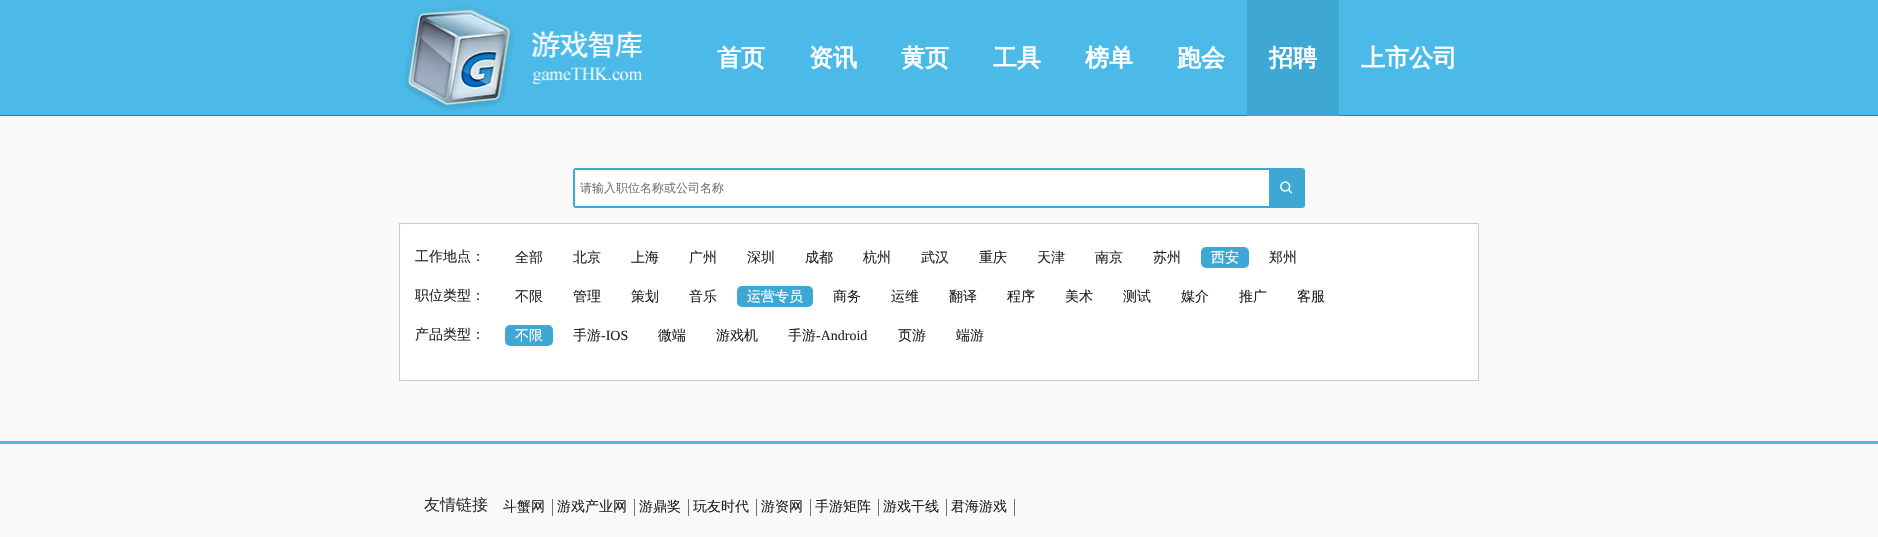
#include "include/core/SkBlurTypes.h"
#include "include/core/SkCanvas.h"
#include "include/core/SkData.h"
#include "include/core/SkFont.h"
#include "include/core/SkFontMgr.h"
#include "include/core/SkImage.h"
#include "include/core/SkMaskFilter.h"
#include "include/core/SkPaint.h"
#include "include/core/SkPathBuilder.h"
#include "include/core/SkTextBlob.h"
#include "include/effects/SkDashPathEffect.h"
#include "include/effects/SkGradientShader.h"
#include "include/utils/SkParsePath.h"

extern sk_sp<SkFontMgr> fontMgr;

void draw(SkCanvas* canvas) {
  SkPaint p;
  p.setAntiAlias(true);
  canvas->clear(SkColorSetRGB(249, 249, 249));
  p.setColor(SkColorSetRGB(76, 186, 232));
  canvas->drawRect(SkRect::MakeLTRB(0, 0, 1878, 115), p);
  p.setColor(SkColorSetRGB(16, 142, 194));
  canvas->drawRect(SkRect::MakeLTRB(0, 115, 1878, 116), p);
  canvas->drawImageRect(SkImages::DeferredFromEncodedData(SkData::MakeFromFileName("images/1.png")), SkRect::MakeLTRB(404, 6, 643, 111), SkSamplingOptions());
  p.setColor(SkColorSetRGB(62, 167, 211));
  canvas->drawRect(SkRect::MakeLTRB(1247, 0, 1339, 116), p);
  p.setStyle(SkPaint::kStroke_Style);
  p.setStrokeWidth(2);
  canvas->drawRoundRect(SkRect::MakeLTRB(574, 169, 1304, 207), 2, 2, p);
  p.setStyle(SkPaint::kFill_Style);
  p.setColor(SK_ColorWHITE);
  canvas->drawRect(SkRect::MakeLTRB(575, 170, 1267, 206), p);
  p.setColor(SkColorSetRGB(62, 167, 211));
  canvas->drawRect(SkRect::MakeLTRB(1269, 170, 1303, 206), p);
  canvas->drawImageRect(SkImages::DeferredFromEncodedData(SkData::MakeFromFileName("images/2.png")), SkRect::MakeLTRB(1280, 181, 1293, 194), SkSamplingOptions());
  p.setStyle(SkPaint::kStroke_Style);
  p.setStrokeWidth(1);
  p.setColor(SkColorSetRGB(202, 202, 202));
  canvas->drawRect(SkRect::MakeLTRB(399.5f, 223.5f, 1478.5f, 380.5f), p);
  p.setStyle(SkPaint::kFill_Style);
  p.setColor(SK_ColorWHITE);
  canvas->drawRoundRect(SkRect::MakeLTRB(400, 224, 1478, 380), 5, 5, p);
  p.setColor(SkColorSetRGB(62, 167, 211));
  canvas->drawRoundRect(SkRect::MakeLTRB(1201, 247, 1249, 268), 5, 5, p);
  canvas->drawRoundRect(SkRect::MakeLTRB(737, 286, 813, 307), 5, 5, p);
  canvas->drawRoundRect(SkRect::MakeLTRB(505, 325, 553, 346), 5, 5, p);
  p.setColor(SkColorSetRGB(76, 186, 232));
  canvas->drawRect(SkRect::MakeLTRB(0, 441, 1878, 444), p);
  p.setColor(SkColorSetRGB(113, 113, 113));
  canvas->drawRect(SkRect::MakeLTRB(552, 499, 553, 516), p);
  canvas->drawRect(SkRect::MakeLTRB(634, 499, 635, 516), p);
  canvas->drawRect(SkRect::MakeLTRB(688, 499, 689, 516), p);
  canvas->drawRect(SkRect::MakeLTRB(756, 499, 757, 516), p);
  canvas->drawRect(SkRect::MakeLTRB(810, 499, 811, 516), p);
  canvas->drawRect(SkRect::MakeLTRB(878, 499, 879, 516), p);
  canvas->drawRect(SkRect::MakeLTRB(946, 499, 947, 516), p);
  canvas->drawRect(SkRect::MakeLTRB(1014, 499, 1015, 516), p);
  SkFont font1(fontMgr->matchFamilyStyle("WenQuanYi Zen Hei", SkFontStyle::Bold()), 24);
  font1.setSubpixel(true);
  p.setColor(SK_ColorWHITE);
  canvas->drawString("首页", 717, 66, font1, p);
  canvas->drawString("资讯", 809, 66, font1, p);
  canvas->drawString("黄页", 901, 66, font1, p);
  canvas->drawString("工具", 993, 66, font1, p);
  canvas->drawString("榜单", 1085, 66, font1, p);
  canvas->drawString("跑会", 1177, 66, font1, p);
  canvas->drawString("招聘", 1269, 66, font1, p);
  canvas->drawString("上市公司", 1361, 66, font1, p);
  SkFont font2(fontMgr->matchFamilyStyle("WenQuanYi Zen Hei", SkFontStyle(500, SkFontStyle::kNormal_Width, SkFontStyle::kUpright_Slant)), 12);
  font2.setSubpixel(true);
  p.setColor(SkColorSetRGB(117, 117, 117));
  canvas->drawString("请输入职位名称或公司名称", 580, 192, font2, p);
  SkFont font3(fontMgr->matchFamilyStyle("WenQuanYi Zen Hei", SkFontStyle(500, SkFontStyle::kNormal_Width, SkFontStyle::kUpright_Slant)), 14);
  font3.setSubpixel(true);
  p.setColor(SkColorSetRGB(35, 35, 35));
  canvas->drawString("工作地点：", 415, 261, font3, p);
  canvas->drawString("全部", 515, 262, font3, p);
  canvas->drawString("北京", 573, 262, font3, p);
  canvas->drawString("上海", 631, 262, font3, p);
  canvas->drawString("广州", 689, 262, font3, p);
  canvas->drawString("深圳", 747, 262, font3, p);
  canvas->drawString("成都", 805, 262, font3, p);
  canvas->drawString("杭州", 863, 262, font3, p);
  canvas->drawString("武汉", 921, 262, font3, p);
  canvas->drawString("重庆", 979, 262, font3, p);
  canvas->drawString("天津", 1037, 262, font3, p);
  canvas->drawString("南京", 1095, 262, font3, p);
  canvas->drawString("苏州", 1153, 262, font3, p);
  p.setColor(SK_ColorWHITE);
  canvas->drawString("西安", 1211, 262, font3, p);
  p.setColor(SkColorSetRGB(35, 35, 35));
  canvas->drawString("郑州", 1269, 262, font3, p);
  canvas->drawString("职位类型：", 415, 300, font3, p);
  canvas->drawString("不限", 515, 301, font3, p);
  canvas->drawString("管理", 573, 301, font3, p);
  canvas->drawString("策划", 631, 301, font3, p);
  canvas->drawString("音乐", 689, 301, font3, p);
  p.setColor(SK_ColorWHITE);
  canvas->drawString("运营专员", 747, 301, font3, p);
  p.setColor(SkColorSetRGB(35, 35, 35));
  canvas->drawString("商务", 833, 301, font3, p);
  canvas->drawString("运维", 891, 301, font3, p);
  canvas->drawString("翻译", 949, 301, font3, p);
  canvas->drawString("程序", 1007, 301, font3, p);
  canvas->drawString("美术", 1065, 301, font3, p);
  canvas->drawString("测试", 1123, 301, font3, p);
  canvas->drawString("媒介", 1181, 301, font3, p);
  canvas->drawString("推广", 1239, 301, font3, p);
  canvas->drawString("客服", 1297, 301, font3, p);
  canvas->drawString("产品类型：", 415, 339, font3, p);
  p.setColor(SK_ColorWHITE);
  canvas->drawString("不限", 515, 340, font3, p);
  p.setColor(SkColorSetRGB(35, 35, 35));
  canvas->drawString("手游", 573, 340, font3, p);
  SkFont font4(fontMgr->matchFamilyStyle("Liberation Serif", SkFontStyle::Normal()), 14);
  font4.setSubpixel(true);
  canvas->drawString("-IOS", 601, 340, font4, p);
  canvas->drawString("微端", 658, 340, font3, p);
  canvas->drawString("游戏机", 716, 340, font3, p);
  canvas->drawString("手游", 788, 340, font3, p);
  canvas->drawString("-Android", 816, 340, font4, p);
  canvas->drawString("页游", 898, 340, font3, p);
  canvas->drawString("端游", 956, 340, font3, p);
  SkFont font5(fontMgr->matchFamilyStyle("WenQuanYi Zen Hei", SkFontStyle(500, SkFontStyle::kNormal_Width, SkFontStyle::kUpright_Slant)), 16);
  font5.setSubpixel(true);
  p.setColor(SkColorSetRGB(51, 51, 51));
  canvas->drawString("友情链接", 424, 510, font5, p);
  p.setColor(SkColorSetRGB(35, 35, 35));
  canvas->drawString("斗蟹网", 503, 511, font3, p);
  canvas->drawString("游戏产业网", 557, 511, font3, p);
  canvas->drawString("游鼎奖", 639, 511, font3, p);
  canvas->drawString("玩友时代", 693, 511, font3, p);
  canvas->drawString("游资网", 761, 511, font3, p);
  canvas->drawString("手游矩阵", 815, 511, font3, p);
  canvas->drawString("游戏干线", 883, 511, font3, p);
  canvas->drawString("君海游戏", 951, 511, font3, p);
}
